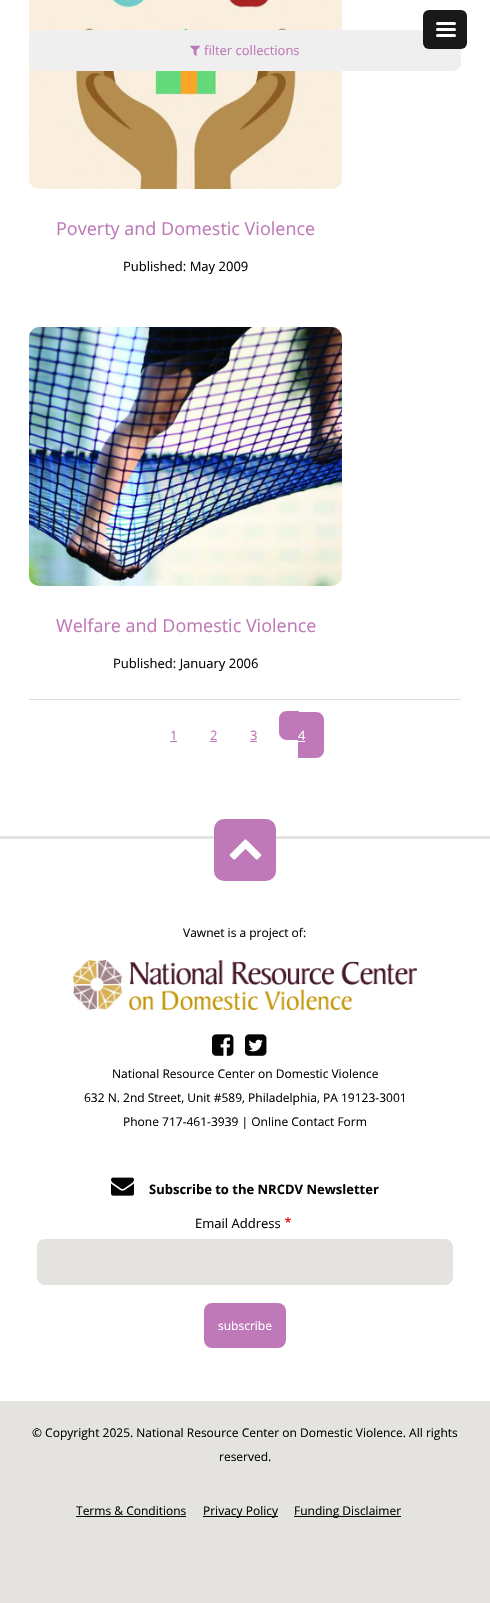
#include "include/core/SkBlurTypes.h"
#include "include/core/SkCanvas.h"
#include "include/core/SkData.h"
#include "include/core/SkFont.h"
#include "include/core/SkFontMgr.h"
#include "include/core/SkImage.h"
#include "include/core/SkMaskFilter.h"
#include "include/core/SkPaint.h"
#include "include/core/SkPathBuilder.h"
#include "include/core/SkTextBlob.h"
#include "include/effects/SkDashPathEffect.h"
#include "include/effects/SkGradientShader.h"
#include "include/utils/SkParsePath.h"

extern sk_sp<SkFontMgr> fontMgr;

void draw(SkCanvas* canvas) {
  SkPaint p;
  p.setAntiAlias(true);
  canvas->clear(SK_ColorWHITE);
  canvas->drawImageRect(SkImages::DeferredFromEncodedData(SkData::MakeFromFileName("images/2.png")), SkRect::MakeLTRB(29, 0, 342, 189), SkSamplingOptions());
  p.setColor(SkColorSetRGB(239, 239, 239));
  canvas->drawRoundRect(SkRect::MakeLTRB(29, 30, 461, 71), 8, 8, p);
  p.setColor(SkColorSetARGB(230, 0, 0, 0));
  canvas->drawRoundRect(SkRect::MakeLTRB(423, 10, 467, 49), 6, 6, p);
  p.setColor(SK_ColorWHITE);
  canvas->drawRoundRect(SkRect::MakeLTRB(436, 22, 456, 25), 1.5f, 1.5f, p);
  canvas->drawRoundRect(SkRect::MakeLTRB(436, 28, 456, 31), 1.5f, 1.5f, p);
  canvas->drawRoundRect(SkRect::MakeLTRB(436, 34, 456, 37), 1.5f, 1.5f, p);
  canvas->drawImageRect(SkImages::DeferredFromEncodedData(SkData::MakeFromFileName("images/1.png")), SkRect::MakeLTRB(190, 45, 201, 56), SkSamplingOptions());
  canvas->drawImageRect(SkImages::DeferredFromEncodedData(SkData::MakeFromFileName("images/3.png")), SkRect::MakeLTRB(29, 327, 342, 586), SkSamplingOptions());
  p.setColor(SkColorSetRGB(221, 221, 221));
  canvas->drawRect(SkRect::MakeLTRB(29, 699, 461, 700), p);
  p.setColor(SkColorSetRGB(191, 120, 184));
  canvas->drawRect(SkRect::MakeLTRB(170, 741, 177, 742), p);
  canvas->drawRect(SkRect::MakeLTRB(210, 741, 217, 742), p);
  canvas->drawRect(SkRect::MakeLTRB(250, 741, 257, 742), p);
  canvas->drawPath(SkPathBuilder().moveTo(287, 711).lineTo(299, 711).lineTo(299, 740).lineTo(287, 740).cubicTo(282.5f, 740, 279, 736.5f, 279, 732).lineTo(279, 719).cubicTo(279, 714.5f, 282.5f, 711, 287, 711).close().detach(), p);
  canvas->drawPath(SkPathBuilder().moveTo(298, 712).lineTo(316, 712).cubicTo(320.5f, 712, 324, 715.5f, 324, 720).lineTo(324, 750).cubicTo(324, 754.5f, 320.5f, 758, 316, 758).lineTo(298, 758).close().detach(), p);
  p.setColor(SK_ColorWHITE);
  canvas->drawRect(SkRect::MakeLTRB(298, 741, 305, 742), p);
  p.setColor(SkColorSetRGB(229, 227, 224));
  canvas->drawRect(SkRect::MakeLTRB(0, 836, 490, 839), p);
  p.setColor(SkColorSetRGB(191, 120, 184));
  canvas->drawRoundRect(SkRect::MakeLTRB(214, 819, 276, 881), 10, 10, p);
  canvas->drawImageRect(SkImages::DeferredFromEncodedData(SkData::MakeFromFileName("images/4.png")), SkRect::MakeLTRB(229, 839, 262, 860), SkSamplingOptions());
  canvas->drawImageRect(SkImages::DeferredFromEncodedData(SkData::MakeFromFileName("images/5.png")), SkRect::MakeLTRB(73, 960, 417, 1010), SkSamplingOptions());
  canvas->drawImageRect(SkImages::DeferredFromEncodedData(SkData::MakeFromFileName("images/6.png")), SkRect::MakeLTRB(212, 1034, 234, 1056), SkSamplingOptions());
  canvas->drawImageRect(SkImages::DeferredFromEncodedData(SkData::MakeFromFileName("images/7.png")), SkRect::MakeLTRB(245, 1034, 267, 1056), SkSamplingOptions());
  canvas->drawImageRect(SkImages::DeferredFromEncodedData(SkData::MakeFromFileName("images/8.png")), SkRect::MakeLTRB(111, 1177, 134, 1196), SkSamplingOptions());
  canvas->drawImageRect(SkImages::DeferredFromEncodedData(SkData::MakeFromFileName("images/9.png")), SkRect::MakeLTRB(285, 1217, 291, 1223), SkSamplingOptions());
  p.setColor(SkColorSetRGB(229, 227, 224));
  canvas->drawRoundRect(SkRect::MakeLTRB(37, 1239, 453, 1285), 8, 8, p);
  p.setColor(SkColorSetRGB(191, 120, 184));
  canvas->drawRoundRect(SkRect::MakeLTRB(204, 1303, 286, 1348), 8, 8, p);
  p.setColor(SkColorSetRGB(229, 227, 224));
  canvas->drawRect(SkRect::MakeLTRB(0, 1401, 490, 1603), p);
  p.setColor(SkColorSetRGB(5, 5, 5));
  canvas->drawRect(SkRect::MakeLTRB(76, 1516, 186, 1517), p);
  canvas->drawRect(SkRect::MakeLTRB(203, 1516, 278, 1517), p);
  canvas->drawRect(SkRect::MakeLTRB(294, 1516, 401, 1517), p);
  SkFont font1(fontMgr->matchFamilyStyle("Open Sans", SkFontStyle::Normal()), 13);
  font1.setSubpixel(true);
  p.setColor(SkColorSetRGB(191, 120, 184));
  canvas->drawString("filter collections", 204, 55, font1, p);
  SkFont font2(fontMgr->matchFamilyStyle("Open Sans", SkFontStyle::Normal()), 18);
  font2.setSubpixel(true);
  canvas->drawString("Poverty and Domestic Violence", 56, 235, font2, p);
  p.setColor(SkColorSetRGB(5, 5, 5));
  canvas->drawString("Published: May 2009", 123, 271, font1, p);
  p.setColor(SkColorSetRGB(191, 120, 184));
  canvas->drawString("Welfare and Domestic Violence", 56, 632, font2, p);
  p.setColor(SkColorSetRGB(5, 5, 5));
  canvas->drawString("Published: January 2006", 113, 668, font1, p);
  p.setColor(SkColorSetRGB(191, 120, 184));
  canvas->drawString("1", 170, 740, font1, p);
  canvas->drawString("2", 210, 740, font1, p);
  canvas->drawString("3", 250, 740, font1, p);
  p.setColor(SK_ColorWHITE);
  canvas->drawString("4", 298, 740, font1, p);
  SkFont font3(fontMgr->matchFamilyStyle("Open Sans", SkFontStyle::Normal()), 12);
  font3.setSubpixel(true);
  p.setColor(SkColorSetRGB(5, 5, 5));
  canvas->drawString("Vawnet is a project of:", 183, 937, font3, p);
  canvas->drawString("National Resource Center on Domestic Violence", 112, 1078, font3, p);
  canvas->drawString("632 N. 2nd Street, Unit #589, Philadelphia, PA 19123-3001", 84, 1102, font3, p);
  canvas->drawString("Phone 717-461-3939 | Online Contact Form", 123, 1126, font3, p);
  SkFont font4(fontMgr->matchFamilyStyle("Open Sans", SkFontStyle::Bold()), 13);
  font4.setSubpixel(true);
  canvas->drawString("Subscribe to the NRCDV Newsletter", 149, 1194, font4, p);
  canvas->drawString("Email Address", 195, 1228, font1, p);
  p.setColor(SK_ColorWHITE);
  canvas->drawString("subscribe", 218, 1330, font3, p);
  p.setColor(SkColorSetRGB(5, 5, 5));
  canvas->drawString("© Copyright 2025. National Resource Center on Domestic Violence. All rights", 32, 1437, font3, p);
  canvas->drawString("reserved.", 219, 1461, font3, p);
  canvas->drawString("Terms & Conditions", 76, 1515, font3, p);
  canvas->drawString("Privacy Policy", 203, 1515, font3, p);
  canvas->drawString("Funding Disclaimer", 294, 1515, font3, p);
}
